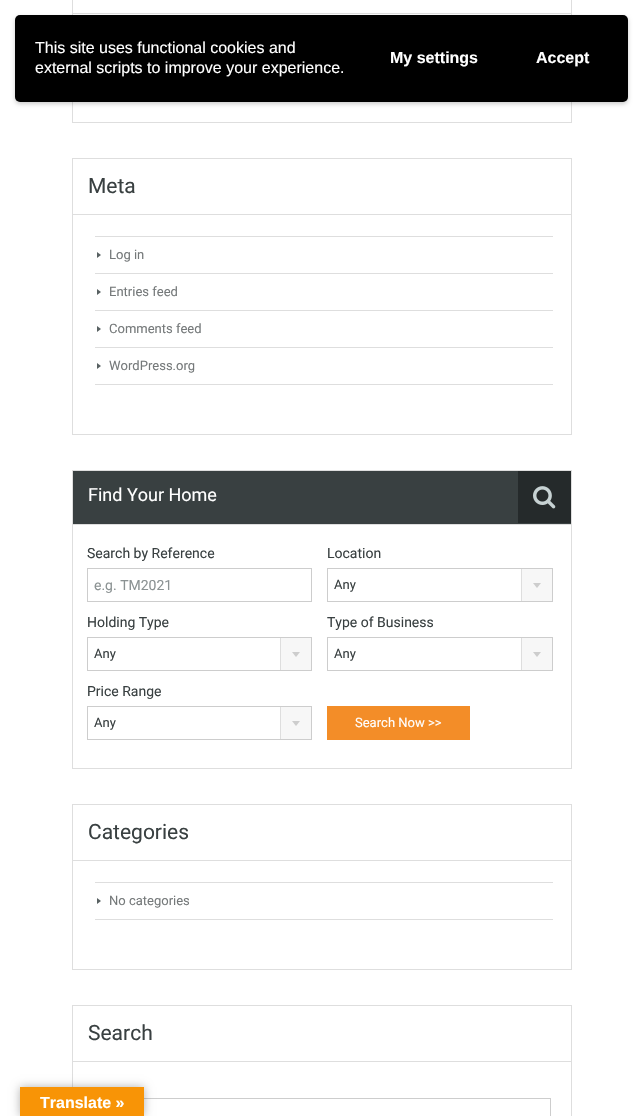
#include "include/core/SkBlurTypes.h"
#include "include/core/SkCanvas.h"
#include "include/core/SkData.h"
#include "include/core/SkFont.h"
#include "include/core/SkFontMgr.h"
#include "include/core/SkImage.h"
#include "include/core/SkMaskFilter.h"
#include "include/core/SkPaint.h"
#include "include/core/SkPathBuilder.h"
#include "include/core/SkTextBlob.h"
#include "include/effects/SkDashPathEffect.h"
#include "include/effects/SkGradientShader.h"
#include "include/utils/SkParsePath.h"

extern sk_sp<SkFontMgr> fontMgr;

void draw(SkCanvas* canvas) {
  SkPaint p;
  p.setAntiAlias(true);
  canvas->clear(SK_ColorWHITE);
  p.setStyle(SkPaint::kStroke_Style);
  p.setStrokeWidth(1);
  p.setColor(SkColorSetRGB(222, 222, 222));
  canvas->drawRect(SkRect::MakeLTRB(72.5f, -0.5f, 571.5f, 122.5f), p);
  p.setStyle(SkPaint::kFill_Style);
  canvas->drawRect(SkRect::MakeLTRB(73, 13, 571, 14), p);
  p.setColor(SkColorSetARGB(51, 0, 0, 0));
  p.setMaskFilter(SkMaskFilter::MakeBlur(kNormal_SkBlurStyle, 2));
  canvas->drawRoundRect(SkRect::MakeLTRB(15, 17, 628, 104), 5, 5, p);
  p.setMaskFilter(nullptr);
  p.setColor(SK_ColorBLACK);
  canvas->drawRoundRect(SkRect::MakeLTRB(15, 15, 628, 102), 5, 5, p);
  p.setStyle(SkPaint::kStroke_Style);
  p.setColor(SkColorSetRGB(222, 222, 222));
  canvas->drawRect(SkRect::MakeLTRB(72.5f, 158.5f, 571.5f, 434.5f), p);
  p.setStyle(SkPaint::kFill_Style);
  canvas->drawRect(SkRect::MakeLTRB(73, 214, 571, 215), p);
  canvas->drawImageRect(SkImages::DeferredFromEncodedData(SkData::MakeFromFileName("images/1.png")), SkRect::MakeLTRB(97, 252, 101, 258), SkSamplingOptions());
  canvas->drawRect(SkRect::MakeLTRB(95, 236, 553, 237), p);
  canvas->drawRect(SkRect::MakeLTRB(95, 273, 553, 274), p);
  canvas->drawImageRect(SkImages::DeferredFromEncodedData(SkData::MakeFromFileName("images/1.png")), SkRect::MakeLTRB(97, 289, 101, 295), SkSamplingOptions());
  canvas->drawRect(SkRect::MakeLTRB(95, 310, 553, 311), p);
  canvas->drawImageRect(SkImages::DeferredFromEncodedData(SkData::MakeFromFileName("images/1.png")), SkRect::MakeLTRB(97, 326, 101, 332), SkSamplingOptions());
  canvas->drawRect(SkRect::MakeLTRB(95, 347, 553, 348), p);
  canvas->drawImageRect(SkImages::DeferredFromEncodedData(SkData::MakeFromFileName("images/1.png")), SkRect::MakeLTRB(97, 363, 101, 369), SkSamplingOptions());
  canvas->drawRect(SkRect::MakeLTRB(95, 384, 553, 385), p);
  p.setStyle(SkPaint::kStroke_Style);
  canvas->drawRect(SkRect::MakeLTRB(72.5f, 470.5f, 571.5f, 768.5f), p);
  p.setStyle(SkPaint::kFill_Style);
  p.setColor(SkColorSetRGB(57, 64, 65));
  canvas->drawRect(SkRect::MakeLTRB(73, 471, 571, 524), p);
  p.setColor(SkColorSetRGB(222, 222, 222));
  canvas->drawRect(SkRect::MakeLTRB(73, 524, 571, 525), p);
  p.setColor(SkColorSetRGB(37, 42, 43));
  canvas->drawRect(SkRect::MakeLTRB(518, 471, 571, 523), p);
  canvas->drawImageRect(SkImages::DeferredFromEncodedData(SkData::MakeFromFileName("images/2.png")), SkRect::MakeLTRB(533, 486, 556, 509), SkSamplingOptions());
  p.setStyle(SkPaint::kStroke_Style);
  p.setColor(SkColorSetRGB(205, 205, 205));
  canvas->drawRect(SkRect::MakeLTRB(87.5f, 568.5f, 311.5f, 601.5f), p);
  canvas->drawRect(SkRect::MakeLTRB(327.5f, 568.5f, 552.5f, 601.5f), p);
  p.setStyle(SkPaint::kFill_Style);
  p.setColor(SkColorSetRGB(247, 247, 247));
  canvas->drawRect(SkRect::MakeLTRB(522, 569, 552, 601), p);
  p.setColor(SkColorSetRGB(222, 222, 222));
  canvas->drawRect(SkRect::MakeLTRB(521, 569, 522, 601), p);
  p.setColor(SkColorSetRGB(205, 205, 205));
  canvas->drawPath(SkPathBuilder().moveTo(533, 583).lineTo(541, 583).lineTo(537, 588).close().detach(), p);
  p.setStyle(SkPaint::kStroke_Style);
  canvas->drawRect(SkRect::MakeLTRB(87.5f, 637.5f, 311.5f, 670.5f), p);
  p.setStyle(SkPaint::kFill_Style);
  p.setColor(SkColorSetRGB(247, 247, 247));
  canvas->drawRect(SkRect::MakeLTRB(281, 638, 311, 670), p);
  p.setColor(SkColorSetRGB(222, 222, 222));
  canvas->drawRect(SkRect::MakeLTRB(280, 638, 281, 670), p);
  p.setColor(SkColorSetRGB(205, 205, 205));
  canvas->drawPath(SkPathBuilder().moveTo(292, 652).lineTo(300, 652).lineTo(296, 657).close().detach(), p);
  p.setStyle(SkPaint::kStroke_Style);
  canvas->drawRect(SkRect::MakeLTRB(327.5f, 637.5f, 552.5f, 670.5f), p);
  p.setStyle(SkPaint::kFill_Style);
  p.setColor(SkColorSetRGB(247, 247, 247));
  canvas->drawRect(SkRect::MakeLTRB(522, 638, 552, 670), p);
  p.setColor(SkColorSetRGB(222, 222, 222));
  canvas->drawRect(SkRect::MakeLTRB(521, 638, 522, 670), p);
  p.setColor(SkColorSetRGB(205, 205, 205));
  canvas->drawPath(SkPathBuilder().moveTo(533, 652).lineTo(541, 652).lineTo(537, 657).close().detach(), p);
  p.setStyle(SkPaint::kStroke_Style);
  canvas->drawRect(SkRect::MakeLTRB(87.5f, 706.5f, 311.5f, 739.5f), p);
  p.setStyle(SkPaint::kFill_Style);
  p.setColor(SkColorSetRGB(247, 247, 247));
  canvas->drawRect(SkRect::MakeLTRB(281, 707, 311, 739), p);
  p.setColor(SkColorSetRGB(222, 222, 222));
  canvas->drawRect(SkRect::MakeLTRB(280, 707, 281, 739), p);
  p.setColor(SkColorSetRGB(205, 205, 205));
  canvas->drawPath(SkPathBuilder().moveTo(292, 721).lineTo(300, 721).lineTo(296, 726).close().detach(), p);
  p.setColor(SkColorSetRGB(243, 141, 40));
  canvas->drawRect(SkRect::MakeLTRB(327, 706, 470, 740), p);
  p.setStyle(SkPaint::kStroke_Style);
  p.setColor(SkColorSetRGB(222, 222, 222));
  canvas->drawRect(SkRect::MakeLTRB(72.5f, 804.5f, 571.5f, 969.5f), p);
  p.setStyle(SkPaint::kFill_Style);
  canvas->drawRect(SkRect::MakeLTRB(73, 860, 571, 861), p);
  canvas->drawImageRect(SkImages::DeferredFromEncodedData(SkData::MakeFromFileName("images/1.png")), SkRect::MakeLTRB(97, 898, 101, 904), SkSamplingOptions());
  canvas->drawRect(SkRect::MakeLTRB(95, 882, 553, 883), p);
  canvas->drawRect(SkRect::MakeLTRB(95, 919, 553, 920), p);
  p.setStyle(SkPaint::kStroke_Style);
  canvas->drawRect(SkRect::MakeLTRB(72.5f, 1005.5f, 571.5f, 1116.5f), p);
  p.setStyle(SkPaint::kFill_Style);
  canvas->drawRect(SkRect::MakeLTRB(73, 1061, 571, 1062), p);
  p.setStyle(SkPaint::kStroke_Style);
  p.setColor(SkColorSetRGB(205, 205, 205));
  canvas->drawRect(SkRect::MakeLTRB(93.5f, 1098.5f, 550.5f, 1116.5f), p);
  p.setStyle(SkPaint::kFill_Style);
  p.setColor(SkColorSetARGB(77, 0, 0, 0));
  p.setMaskFilter(SkMaskFilter::MakeBlur(kNormal_SkBlurStyle, 4.5f));
  canvas->drawRect(SkRect::MakeLTRB(20, 1087, 144, 1116), p);
  p.setMaskFilter(nullptr);
  p.setColor(SkColorSetRGB(248, 148, 6));
  canvas->drawRect(SkRect::MakeLTRB(20, 1087, 144, 1116), p);
  SkFont font1(fontMgr->matchFamilyStyle("Liberation Sans", SkFontStyle::Normal()), 16);
  font1.setSubpixel(true);
  p.setColor(SK_ColorWHITE);
  canvas->drawString("This site uses functional cookies and", 35, 53, font1, p);
  canvas->drawString("external scripts to improve your experience.", 35, 73, font1, p);
  SkFont font2(fontMgr->matchFamilyStyle("Liberation Sans", SkFontStyle::Bold()), 16);
  font2.setSubpixel(true);
  canvas->drawString("My settings", 390, 63, font2, p);
  canvas->drawString("Accept", 536, 63, font2, p);
  SkFont font3(fontMgr->matchFamilyStyle("Roboto", SkFontStyle::Normal()), 21);
  font3.setSubpixel(true);
  p.setColor(SkColorSetRGB(57, 64, 65));
  canvas->drawString("Meta", 88, 193, font3, p);
  SkFont font4(fontMgr->matchFamilyStyle("Roboto", SkFontStyle::Normal()), 13);
  font4.setSubpixel(true);
  p.setColor(SkColorSetRGB(117, 121, 122));
  canvas->drawString("Log in", 109, 259, font4, p);
  canvas->drawString("Entries feed", 109, 296, font4, p);
  canvas->drawString("Comments feed", 109, 333, font4, p);
  canvas->drawString("WordPress.org", 109, 370, font4, p);
  SkFont font5(fontMgr->matchFamilyStyle("Roboto", SkFontStyle::Normal()), 18);
  font5.setSubpixel(true);
  p.setColor(SK_ColorWHITE);
  canvas->drawString("Find Your Home", 88, 501, font5, p);
  SkFont font6(fontMgr->matchFamilyStyle("Roboto", SkFontStyle::Normal()), 14);
  font6.setSubpixel(true);
  p.setColor(SkColorSetRGB(57, 64, 65));
  canvas->drawString("Search by Reference", 87, 558, font6, p);
  p.setColor(SkColorSetRGB(139, 146, 147));
  canvas->drawString("e.g. TM2021", 94, 590, font6, p);
  p.setColor(SkColorSetRGB(57, 64, 65));
  canvas->drawString("Location", 327, 558, font6, p);
  canvas->drawString("Any", 334, 589, font4, p);
  canvas->drawString("Holding Type", 87, 627, font6, p);
  canvas->drawString("Any", 94, 658, font4, p);
  canvas->drawString("Type of Business", 327, 627, font6, p);
  canvas->drawString("Any", 334, 658, font4, p);
  canvas->drawString("Price Range", 87, 696, font6, p);
  canvas->drawString("Any", 94, 727, font4, p);
  p.setColor(SK_ColorWHITE);
  canvas->drawString("Search Now >>", 355, 727, font4, p);
  p.setColor(SkColorSetRGB(57, 64, 65));
  canvas->drawString("Categories", 88, 839, font3, p);
  p.setColor(SkColorSetRGB(117, 121, 122));
  canvas->drawString("No categories", 109, 905, font4, p);
  p.setColor(SkColorSetRGB(57, 64, 65));
  canvas->drawString("Search", 88, 1040, font3, p);
  p.setColor(SK_ColorWHITE);
  canvas->drawString("Translate »", 40, 1108, font2, p);
}
